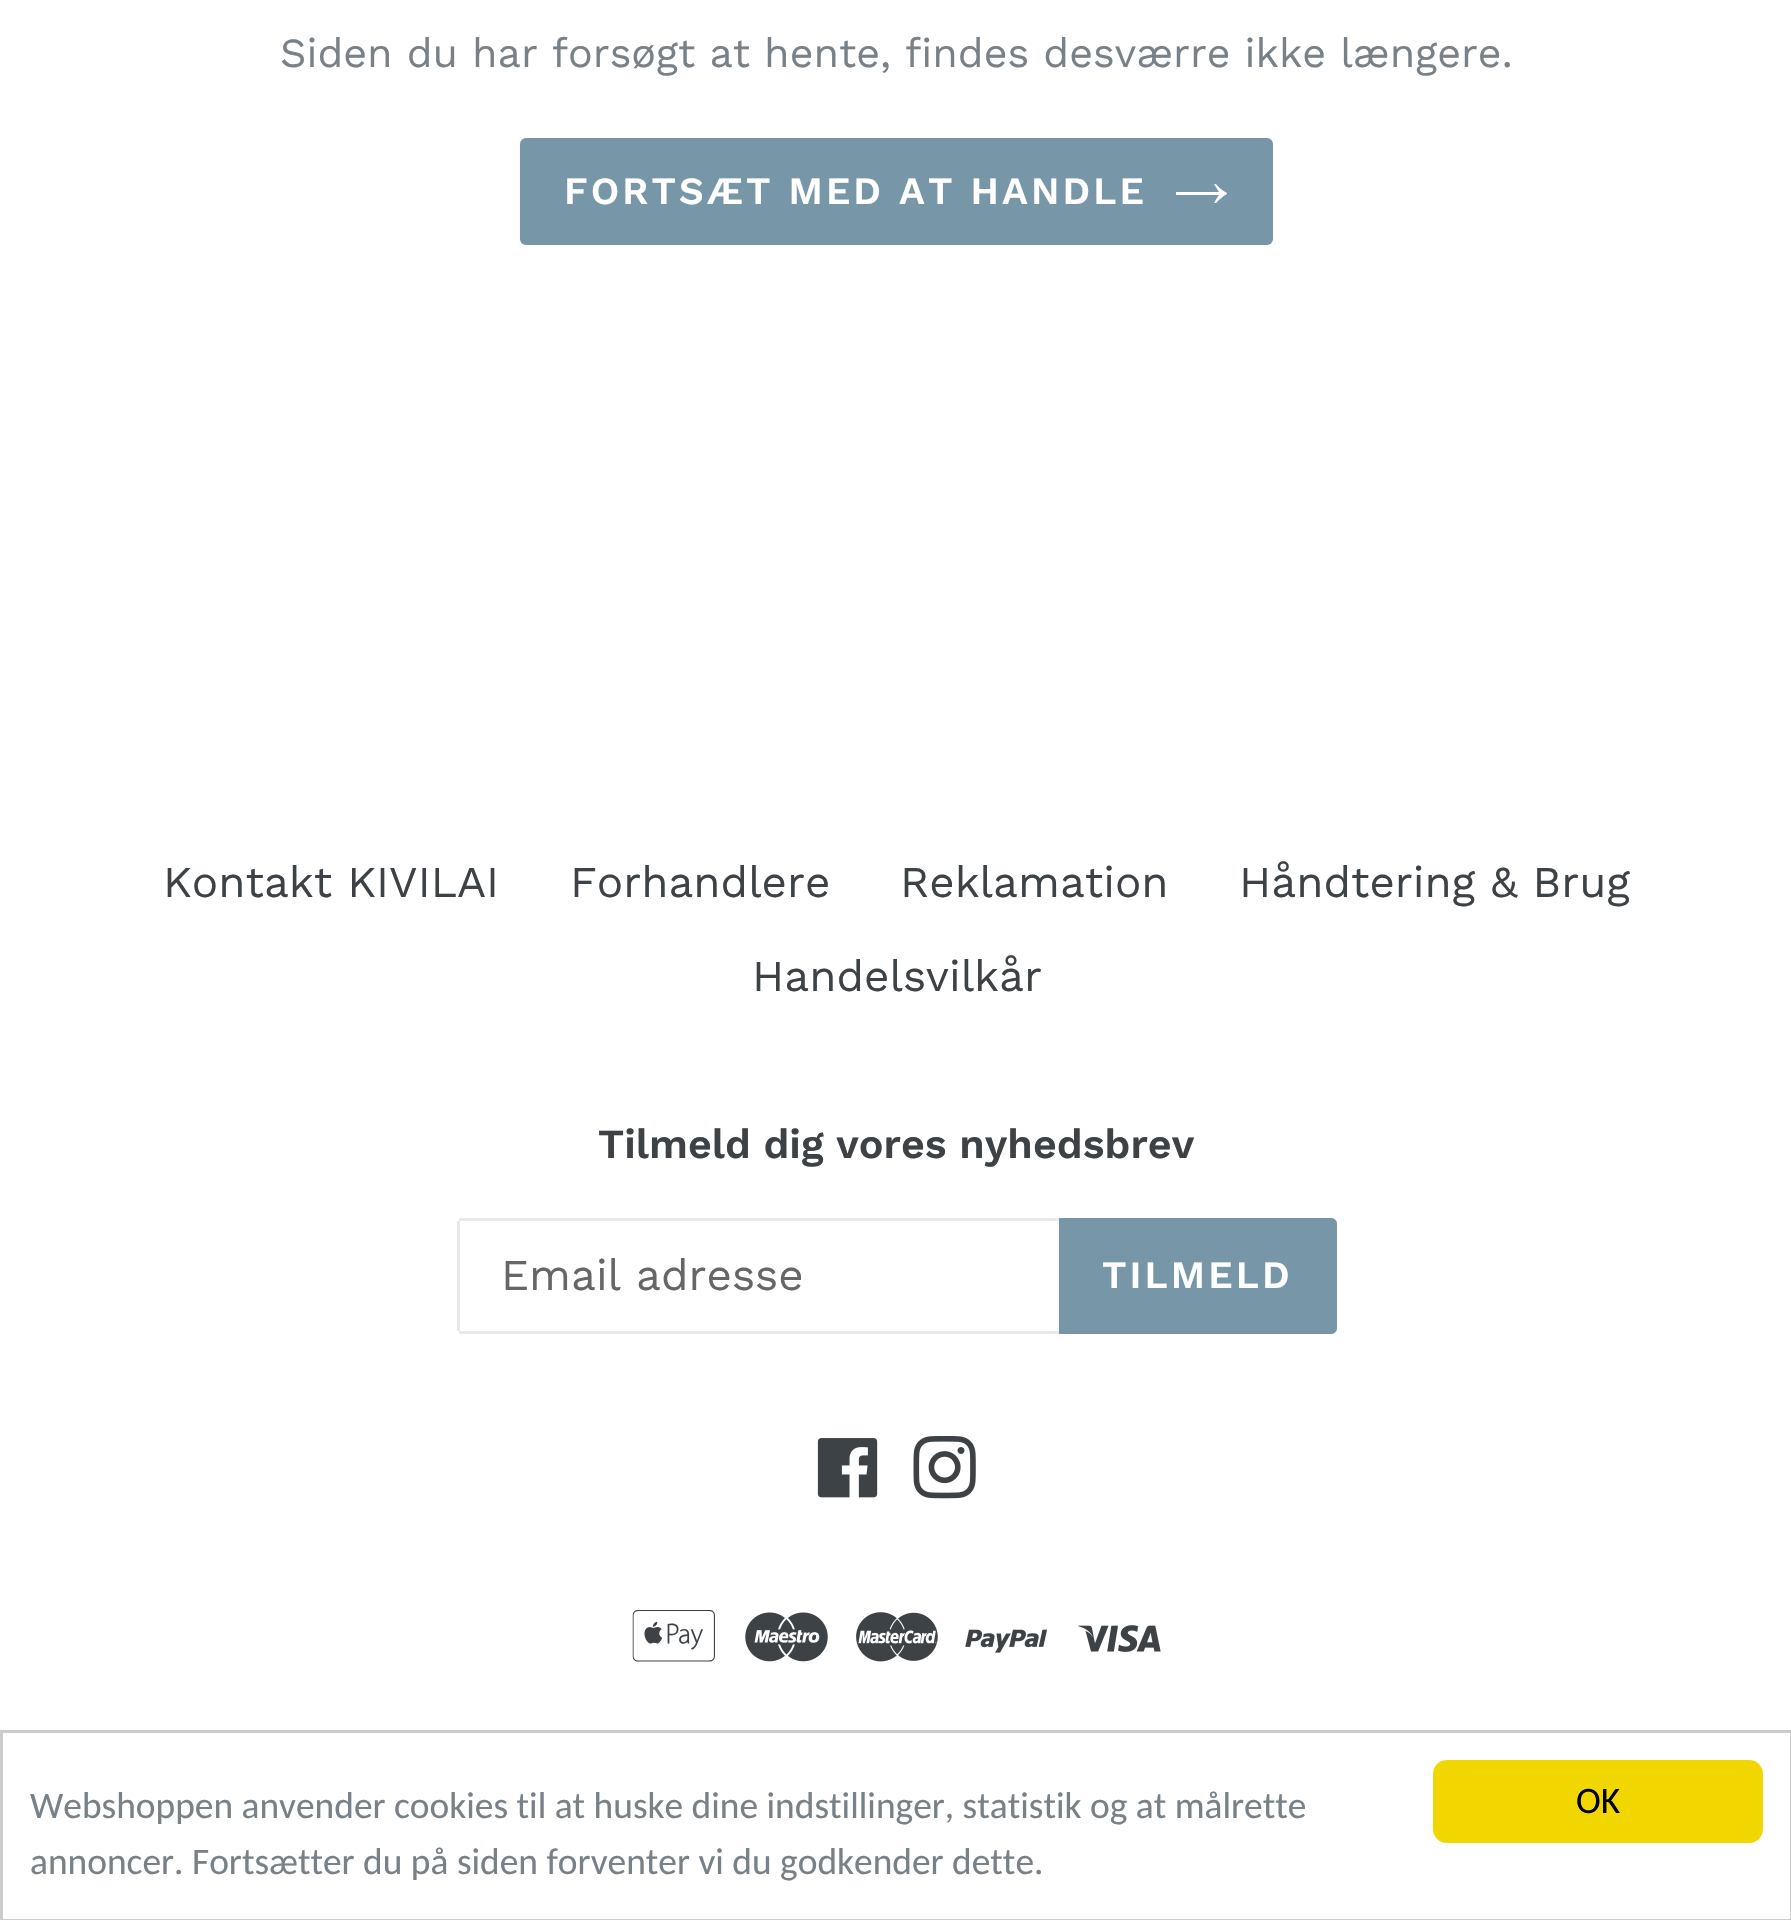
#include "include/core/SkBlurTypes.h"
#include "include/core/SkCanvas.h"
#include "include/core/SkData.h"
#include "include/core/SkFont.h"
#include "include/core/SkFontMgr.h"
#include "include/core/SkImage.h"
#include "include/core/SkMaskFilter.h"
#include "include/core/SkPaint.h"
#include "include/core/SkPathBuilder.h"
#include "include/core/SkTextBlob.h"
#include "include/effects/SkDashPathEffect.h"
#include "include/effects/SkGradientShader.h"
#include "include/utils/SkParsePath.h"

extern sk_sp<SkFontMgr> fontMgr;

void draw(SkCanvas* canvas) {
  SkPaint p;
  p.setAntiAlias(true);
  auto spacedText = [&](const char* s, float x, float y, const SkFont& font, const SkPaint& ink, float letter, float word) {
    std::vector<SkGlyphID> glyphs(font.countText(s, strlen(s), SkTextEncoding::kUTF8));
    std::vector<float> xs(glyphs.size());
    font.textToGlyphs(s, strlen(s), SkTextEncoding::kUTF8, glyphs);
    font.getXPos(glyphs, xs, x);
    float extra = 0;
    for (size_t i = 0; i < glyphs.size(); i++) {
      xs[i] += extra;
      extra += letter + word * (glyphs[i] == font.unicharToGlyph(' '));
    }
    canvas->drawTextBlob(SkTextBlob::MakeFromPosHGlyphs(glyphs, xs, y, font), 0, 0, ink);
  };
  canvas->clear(SK_ColorWHITE);
  p.setColor(SkColorSetRGB(119, 150, 168));
  canvas->drawRoundRect(SkRect::MakeLTRB(520, 138, 1273, 245), 6, 6, p);
  p.setColor(SK_ColorWHITE);
  canvas->drawPath(SkPathBuilder(SkPathFillType::kEvenOdd).moveTo(1216, 184).cubicTo(1219, 188, 1223, 191, 1227, 193).lineTo(1227, 194).cubicTo(1223, 196, 1219, 200, 1216, 203).lineTo(1214, 203).cubicTo(1216, 200, 1217, 197, 1219, 195).lineTo(1176, 195).lineTo(1176, 192).lineTo(1219, 192).lineTo(1214, 184).close().detach(), p);
  p.setColor(SkColorSetRGB(232, 233, 235));
  canvas->drawRect(SkRect::MakeLTRB(459, 1218, 1059, 1221), p);
  canvas->drawRect(SkRect::MakeLTRB(459, 1331, 1059, 1334), p);
  canvas->drawRect(SkRect::MakeLTRB(457, 1221, 460, 1331), p);
  p.setColor(SkColorSetRGB(119, 150, 168));
  canvas->drawPath(SkPathBuilder().moveTo(1059, 1218).lineTo(1331, 1218).cubicTo(1334.5f, 1218, 1337, 1220.5f, 1337, 1224).lineTo(1337, 1328).cubicTo(1337, 1331.5f, 1334.5f, 1334, 1331, 1334).lineTo(1059, 1334).close().detach(), p);
  canvas->drawImageRect(SkImages::DeferredFromEncodedData(SkData::MakeFromFileName("images/1.png")), SkRect::MakeLTRB(817, 1438, 878, 1498), SkSamplingOptions());
  canvas->drawImageRect(SkImages::DeferredFromEncodedData(SkData::MakeFromFileName("images/2.png")), SkRect::MakeLTRB(913, 1436, 976, 1499), SkSamplingOptions());
  canvas->drawImageRect(SkImages::DeferredFromEncodedData(SkData::MakeFromFileName("images/3.png")), SkRect::MakeLTRB(632, 1610, 715, 1662), SkSamplingOptions());
  canvas->drawImageRect(SkImages::DeferredFromEncodedData(SkData::MakeFromFileName("images/4.png")), SkRect::MakeLTRB(745, 1612, 828, 1662), SkSamplingOptions());
  canvas->drawImageRect(SkImages::DeferredFromEncodedData(SkData::MakeFromFileName("images/5.png")), SkRect::MakeLTRB(856, 1612, 938, 1662), SkSamplingOptions());
  canvas->drawImageRect(SkImages::DeferredFromEncodedData(SkData::MakeFromFileName("images/6.png")), SkRect::MakeLTRB(965, 1629, 1047, 1653), SkSamplingOptions());
  canvas->drawImageRect(SkImages::DeferredFromEncodedData(SkData::MakeFromFileName("images/7.png")), SkRect::MakeLTRB(1078, 1625, 1161, 1652), SkSamplingOptions());
  p.setStyle(SkPaint::kStroke_Style);
  p.setStrokeWidth(3);
  p.setColor(SkColorSetRGB(204, 204, 204));
  canvas->drawRect(SkRect::MakeLTRB(1.5f, 1731.5f, 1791.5f, 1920.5f), p);
  p.setStyle(SkPaint::kFill_Style);
  p.setColor(SkColorSetRGB(241, 214, 0));
  canvas->drawRoundRect(SkRect::MakeLTRB(1433, 1760, 1763, 1843), 14, 14, p);
  SkFont font1(fontMgr->matchFamilyStyle("Work Sans", SkFontStyle::Normal()), 41.25f);
  font1.setSubpixel(true);
  p.setColor(SkColorSetRGB(120, 129, 136));
  canvas->drawString("Siden du har forsøgt at hente, findes desværre ikke længere.", 280, 67, font1, p);
  SkFont font2(fontMgr->matchFamilyStyle("Work Sans", SkFontStyle(600, SkFontStyle::kNormal_Width, SkFontStyle::kUpright_Slant)), 38.5f);
  font2.setSubpixel(true);
  p.setColor(SK_ColorWHITE);
  spacedText("FORTSÆT MED AT HANDLE", 564, 204, font2, p, 3.1f, 0);
  SkFont font3(fontMgr->matchFamilyStyle("Work Sans", SkFontStyle::Normal()), 44);
  font3.setSubpixel(true);
  p.setColor(SkColorSetRGB(61, 66, 70));
  canvas->drawString("Kontakt KIVILAI", 163, 897, font3, p);
  canvas->drawString("Forhandlere", 570, 897, font3, p);
  canvas->drawString("Reklamation", 900, 897, font3, p);
  canvas->drawString("Håndtering & Brug", 1239, 897, font3, p);
  canvas->drawString("Handelsvilkår", 752, 991, font3, p);
  SkFont font4(fontMgr->matchFamilyStyle("Work Sans", SkFontStyle(600, SkFontStyle::kNormal_Width, SkFontStyle::kUpright_Slant)), 41.25f);
  font4.setSubpixel(true);
  canvas->drawString("Tilmeld dig vores nyhedsbrev", 598, 1158, font4, p);
  p.setColor(SkColorSetRGB(102, 102, 102));
  canvas->drawString("Email adresse", 501, 1290, font3, p);
  p.setColor(SK_ColorWHITE);
  spacedText("TILMELD", 1102, 1288, font2, p, 3.1f, 0);
  SkFont font5(fontMgr->matchFamilyStyle("Carlito", SkFontStyle::Normal()), 37.4f);
  font5.setSubpixel(true);
  p.setColor(SkColorSetRGB(120, 129, 136));
  canvas->drawString("Webshoppen anvender cookies til at huske dine indstillinger, statistik og at målrette", 30, 1818, font5, p);
  canvas->drawString("annoncer. Fortsætter du på siden forventer vi du godkender dette.", 30, 1874, font5, p);
  p.setColor(SK_ColorBLACK);
  canvas->drawString("OK", 1576, 1813, font5, p);
}
